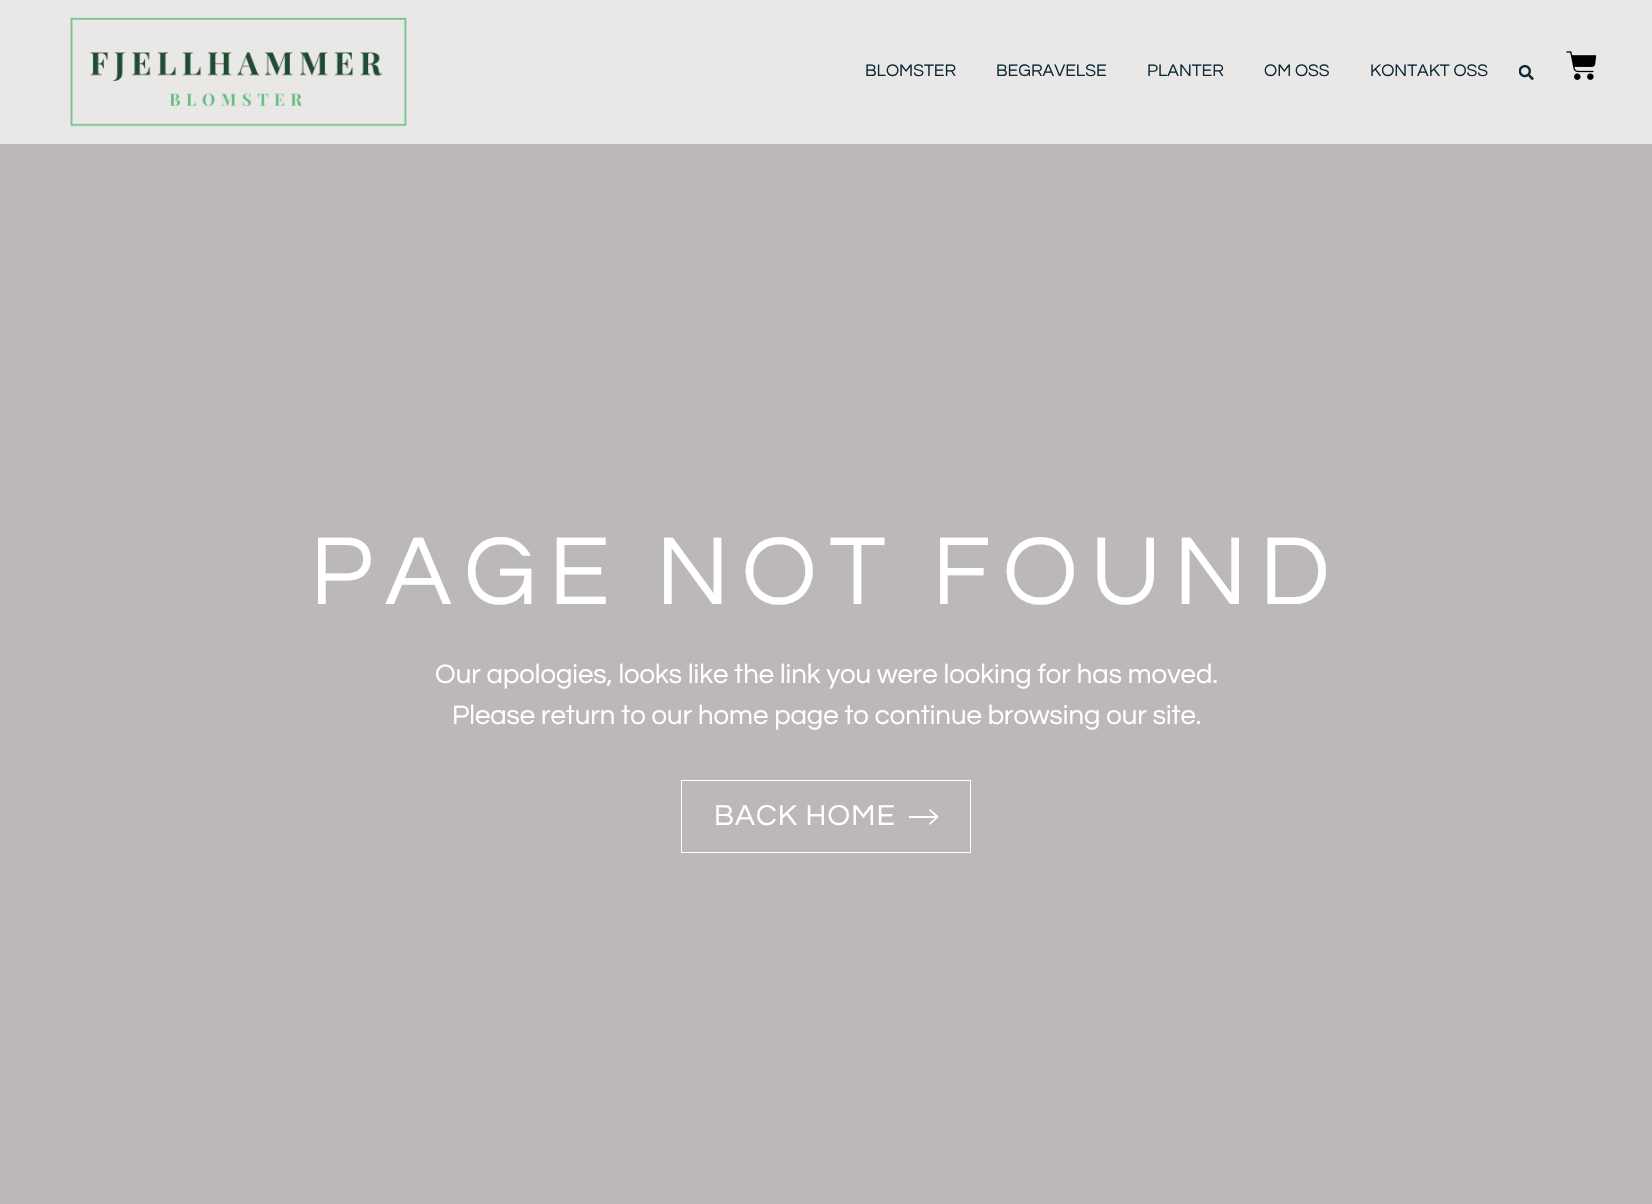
#include "include/core/SkBlurTypes.h"
#include "include/core/SkCanvas.h"
#include "include/core/SkData.h"
#include "include/core/SkFont.h"
#include "include/core/SkFontMgr.h"
#include "include/core/SkImage.h"
#include "include/core/SkMaskFilter.h"
#include "include/core/SkPaint.h"
#include "include/core/SkPathBuilder.h"
#include "include/core/SkTextBlob.h"
#include "include/effects/SkDashPathEffect.h"
#include "include/effects/SkGradientShader.h"
#include "include/utils/SkParsePath.h"

extern sk_sp<SkFontMgr> fontMgr;

void draw(SkCanvas* canvas) {
  SkPaint p;
  p.setAntiAlias(true);
  auto spacedText = [&](const char* s, float x, float y, const SkFont& font, const SkPaint& ink, float letter, float word) {
    std::vector<SkGlyphID> glyphs(font.countText(s, strlen(s), SkTextEncoding::kUTF8));
    std::vector<float> xs(glyphs.size());
    font.textToGlyphs(s, strlen(s), SkTextEncoding::kUTF8, glyphs);
    font.getXPos(glyphs, xs, x);
    float extra = 0;
    for (size_t i = 0; i < glyphs.size(); i++) {
      xs[i] += extra;
      extra += letter + word * (glyphs[i] == font.unicharToGlyph(' '));
    }
    canvas->drawTextBlob(SkTextBlob::MakeFromPosHGlyphs(glyphs, xs, y, font), 0, 0, ink);
  };
  canvas->clear(SkColorSetRGB(233, 232, 230));
  canvas->drawImageRect(SkImages::DeferredFromEncodedData(SkData::MakeFromFileName("images/1.png")), SkRect::MakeLTRB(70, 17, 407, 127), SkSamplingOptions());
  canvas->drawImageRect(SkImages::DeferredFromEncodedData(SkData::MakeFromFileName("images/2.png")), SkRect::MakeLTRB(1519, 65, 1534, 80), SkSamplingOptions());
  canvas->drawImageRect(SkImages::DeferredFromEncodedData(SkData::MakeFromFileName("images/3.png")), SkRect::MakeLTRB(1566, 51, 1597, 80), SkSamplingOptions());
  p.setColor(SkColorSetRGB(188, 184, 185));
  canvas->drawRect(SkRect::MakeLTRB(0, 144, 1652, 1204), p);
  p.setStyle(SkPaint::kStroke_Style);
  p.setStrokeWidth(1);
  p.setColor(SK_ColorWHITE);
  canvas->drawRect(SkRect::MakeLTRB(681.5f, 780.5f, 970.5f, 852.5f), p);
  p.setStyle(SkPaint::kFill_Style);
  canvas->drawPath(SkPathBuilder().moveTo(938, 816).lineTo(930, 809).lineTo(929, 810).lineTo(935, 816).lineTo(909, 816).lineTo(909, 818).lineTo(935, 818).lineTo(929, 823.5f).lineTo(930, 825).lineTo(938.5f, 817).close().detach(), p);
  SkFont font1(fontMgr->matchFamilyStyle("Questrial", SkFontStyle::Normal()), 17.5f);
  font1.setSubpixel(true);
  p.setColor(SkColorSetRGB(12, 40, 53));
  canvas->drawString("BLOMSTER", 865, 76, font1, p);
  canvas->drawString("BEGRAVELSE", 996, 76, font1, p);
  canvas->drawString("PLANTER", 1147, 76, font1, p);
  canvas->drawString("OM OSS", 1264, 76, font1, p);
  canvas->drawString("KONTAKT OSS", 1370, 76, font1, p);
  SkFont font2(fontMgr->matchFamilyStyle("Questrial", SkFontStyle::Normal()), 100);
  font2.setSubpixel(true);
  p.setColor(SK_ColorWHITE);
  spacedText("PAGE NOT FOUND", 310, 604, font2, p, 12.5f, 0);
  SkFont font3(fontMgr->matchFamilyStyle("Questrial", SkFontStyle::Normal()), 27.5f);
  font3.setSubpixel(true);
  canvas->drawString("Our apologies, looks like the link you were looking for has moved.", 435, 683, font3, p);
  canvas->drawString("Please return to our home page to continue browsing our site.", 452, 724, font3, p);
  SkFont font4(fontMgr->matchFamilyStyle("Questrial", SkFontStyle::Normal()), 30);
  font4.setSubpixel(true);
  spacedText("BACK HOME", 714, 825, font4, p, 1.1f, 0);
}
